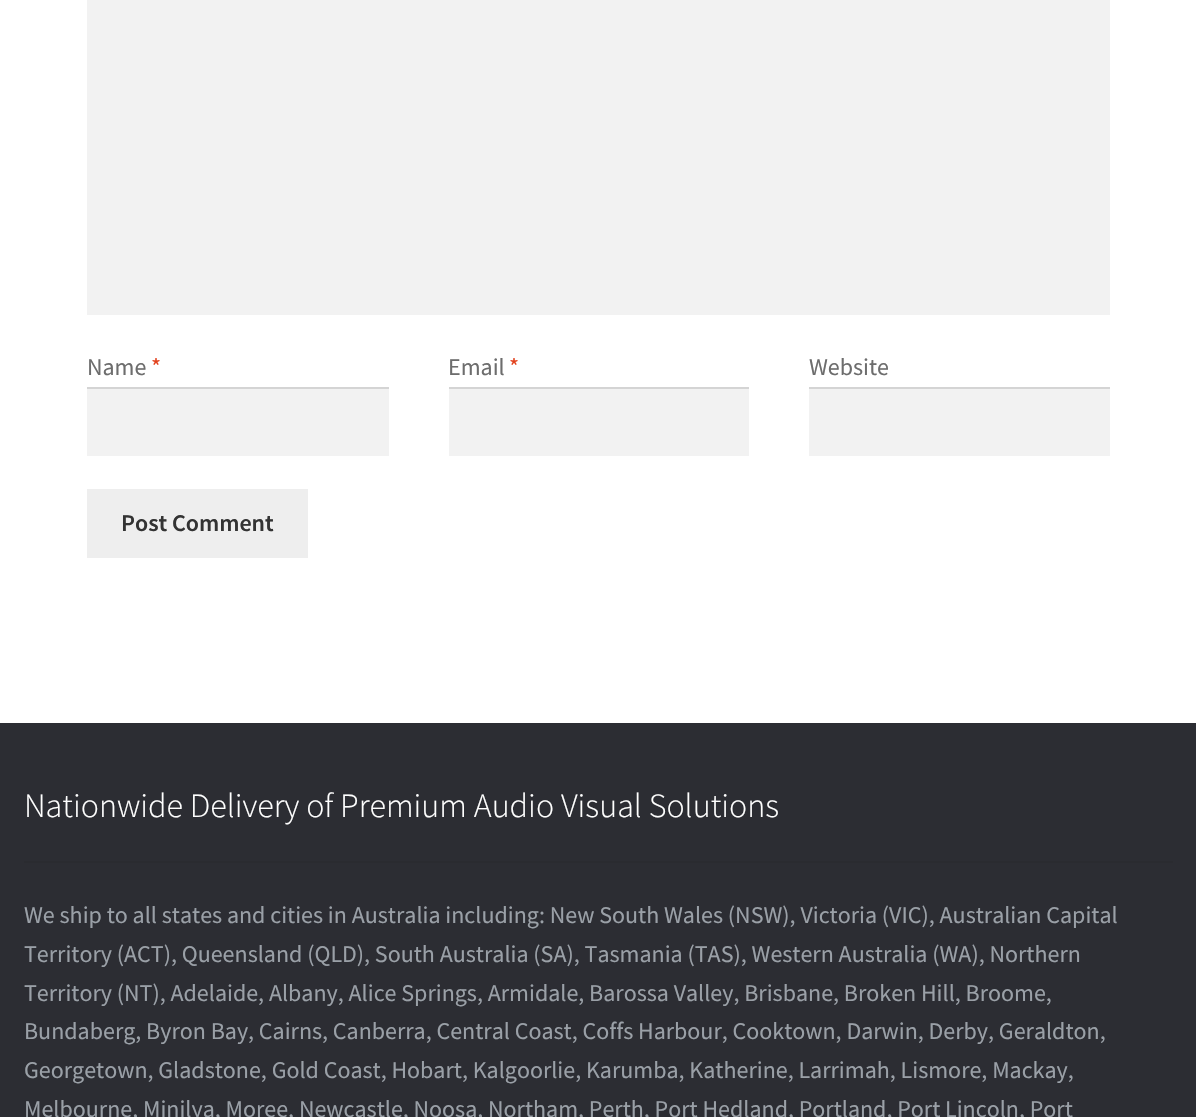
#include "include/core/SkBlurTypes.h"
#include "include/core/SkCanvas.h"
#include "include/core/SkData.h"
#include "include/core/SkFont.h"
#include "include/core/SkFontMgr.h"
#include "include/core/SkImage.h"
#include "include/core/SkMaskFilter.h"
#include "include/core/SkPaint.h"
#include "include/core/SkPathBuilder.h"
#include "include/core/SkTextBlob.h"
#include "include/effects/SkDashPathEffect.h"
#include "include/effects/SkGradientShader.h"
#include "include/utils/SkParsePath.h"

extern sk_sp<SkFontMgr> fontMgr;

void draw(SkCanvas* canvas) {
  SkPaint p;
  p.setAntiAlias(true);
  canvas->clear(SK_ColorWHITE);
  p.setColor(SkColorSetRGB(242, 242, 242));
  canvas->drawRect(SkRect::MakeLTRB(87, 0, 1110, 315), p);
  canvas->drawRect(SkRect::MakeLTRB(87, 389, 389, 456), p);
  p.setColor(SkColorSetRGB(212, 212, 212));
  canvas->drawRect(SkRect::MakeLTRB(87, 387, 389, 389), p);
  p.setColor(SkColorSetRGB(242, 242, 242));
  canvas->drawRect(SkRect::MakeLTRB(449, 389, 749, 456), p);
  p.setColor(SkColorSetRGB(212, 212, 212));
  canvas->drawRect(SkRect::MakeLTRB(449, 387, 749, 389), p);
  p.setColor(SkColorSetRGB(242, 242, 242));
  canvas->drawRect(SkRect::MakeLTRB(809, 389, 1110, 456), p);
  p.setColor(SkColorSetRGB(212, 212, 212));
  canvas->drawRect(SkRect::MakeLTRB(809, 387, 1110, 389), p);
  p.setColor(SkColorSetRGB(238, 238, 238));
  canvas->drawRect(SkRect::MakeLTRB(87, 489, 308, 558), p);
  p.setColor(SkColorSetRGB(44, 45, 51));
  canvas->drawRect(SkRect::MakeLTRB(0, 723, 1196, 1117), p);
  p.setColor(SkColorSetRGB(42, 43, 48));
  canvas->drawRect(SkRect::MakeLTRB(24, 861, 1173, 863), p);
  SkFont font1(fontMgr->matchFamilyStyle("Source Sans Pro", SkFontStyle::Normal()), 24);
  font1.setSubpixel(true);
  p.setColor(SkColorSetRGB(109, 109, 109));
  canvas->drawString("Name", 87, 375, font1, p);
  p.setColor(SkColorSetRGB(226, 64, 28));
  canvas->drawString("*", 151, 375, font1, p);
  p.setColor(SkColorSetRGB(109, 109, 109));
  canvas->drawString("Email", 448, 375, font1, p);
  p.setColor(SkColorSetRGB(226, 64, 28));
  canvas->drawString("*", 509, 375, font1, p);
  p.setColor(SkColorSetRGB(109, 109, 109));
  canvas->drawString("Website", 809, 375, font1, p);
  SkFont font2(fontMgr->matchFamilyStyle("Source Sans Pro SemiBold", SkFontStyle(600, SkFontStyle::kNormal_Width, SkFontStyle::kUpright_Slant)), 24);
  font2.setSubpixel(true);
  p.setColor(SkColorSetRGB(51, 51, 51));
  canvas->drawString("Post Comment", 121, 531, font2, p);
  SkFont font3(fontMgr->matchFamilyStyle("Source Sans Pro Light", SkFontStyle(300, SkFontStyle::kNormal_Width, SkFontStyle::kUpright_Slant)), 34);
  font3.setSubpixel(true);
  p.setColor(SK_ColorWHITE);
  canvas->drawString("Nationwide Delivery of Premium Audio Visual Solutions", 24, 817, font3, p);
  p.setColor(SkColorSetRGB(154, 160, 167));
  canvas->drawString("We ship to all states and cities in Australia including: New South Wales (NSW), Victoria (VIC), Australian Capital", 24, 923, font1, p);
  canvas->drawString("Territory (ACT), Queensland (QLD), South Australia (SA), Tasmania (TAS), Western Australia (WA), Northern", 24, 962, font1, p);
  canvas->drawString("Territory (NT), Adelaide, Albany, Alice Springs, Armidale, Barossa Valley, Brisbane, Broken Hill, Broome,", 24, 1001, font1, p);
  canvas->drawString("Bundaberg, Byron Bay, Cairns, Canberra, Central Coast, Coffs Harbour, Cooktown, Darwin, Derby, Geraldton,", 24, 1039, font1, p);
  canvas->drawString("Georgetown, Gladstone, Gold Coast, Hobart, Kalgoorlie, Karumba, Katherine, Larrimah, Lismore, Mackay,", 24, 1078, font1, p);
  canvas->drawString("Melbourne, Minilya, Moree, Newcastle, Noosa, Northam, Perth, Port Hedland, Portland, Port Lincoln, Port", 24, 1117, font1, p);
}
